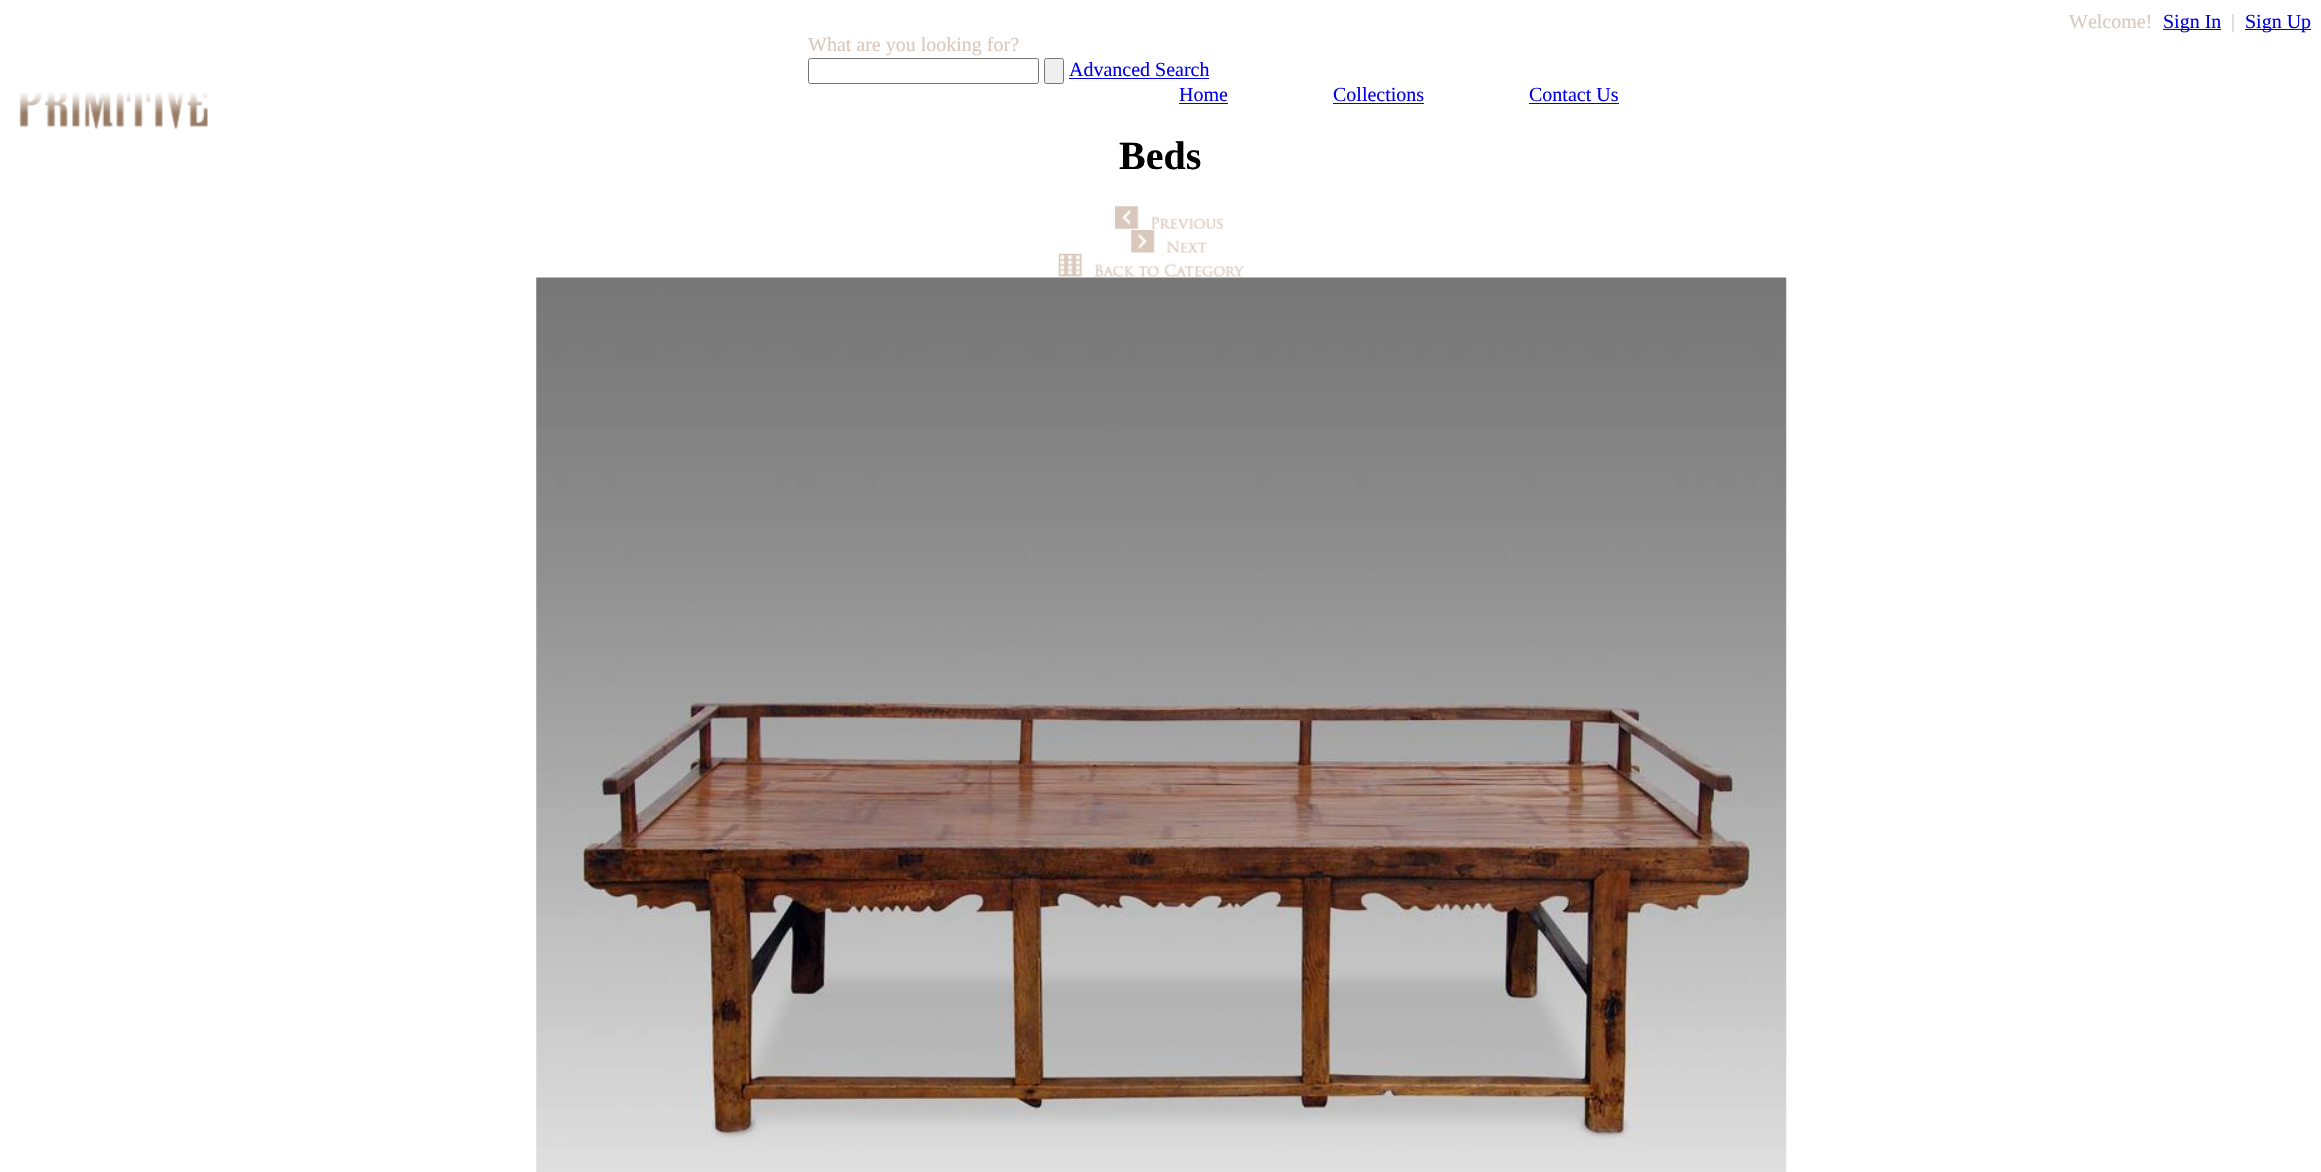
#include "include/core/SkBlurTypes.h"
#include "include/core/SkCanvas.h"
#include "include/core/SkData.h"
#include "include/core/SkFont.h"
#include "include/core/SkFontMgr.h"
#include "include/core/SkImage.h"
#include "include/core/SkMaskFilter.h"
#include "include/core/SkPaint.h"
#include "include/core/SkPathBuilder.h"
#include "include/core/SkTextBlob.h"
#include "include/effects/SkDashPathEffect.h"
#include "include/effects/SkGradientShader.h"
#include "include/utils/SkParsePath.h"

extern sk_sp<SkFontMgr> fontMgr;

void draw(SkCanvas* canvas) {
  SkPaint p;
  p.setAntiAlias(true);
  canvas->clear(SK_ColorWHITE);
  p.setColor(SkColorSetRGB(0, 0, 238));
  canvas->drawRect(SkRect::MakeLTRB(2163, 29, 2221, 30), p);
  canvas->drawRect(SkRect::MakeLTRB(2245, 29, 2311, 30), p);
  p.setStyle(SkPaint::kStroke_Style);
  p.setStrokeWidth(1);
  p.setColor(SkColorSetRGB(118, 118, 118));
  canvas->drawRoundRect(SkRect::MakeLTRB(808.5f, 58.5f, 1038.5f, 83.5f), 2, 2, p);
  p.setStyle(SkPaint::kFill_Style);
  p.setColor(SkColorSetRGB(239, 239, 239));
  canvas->drawRoundRect(SkRect::MakeLTRB(1044.5f, 58.5f, 1063.5f, 83.5f), 2, 2, p);
  p.setStyle(SkPaint::kStroke_Style);
  p.setColor(SkColorSetRGB(118, 118, 118));
  canvas->drawRoundRect(SkRect::MakeLTRB(1044.5f, 58.5f, 1063.5f, 83.5f), 2, 2, p);
  p.setStyle(SkPaint::kFill_Style);
  p.setColor(SkColorSetRGB(0, 0, 238));
  canvas->drawRect(SkRect::MakeLTRB(1069, 78, 1209, 79), p);
  canvas->drawImageRect(SkImages::DeferredFromEncodedData(SkData::MakeFromFileName("images/1.png")), SkRect::MakeLTRB(19, 92, 208, 129), SkSamplingOptions());
  canvas->drawRect(SkRect::MakeLTRB(1179, 103, 1228, 104), p);
  canvas->drawRect(SkRect::MakeLTRB(1333, 103, 1424, 104), p);
  canvas->drawRect(SkRect::MakeLTRB(1529, 103, 1619, 104), p);
  canvas->drawImageRect(SkImages::DeferredFromEncodedData(SkData::MakeFromFileName("images/2.png")), SkRect::MakeLTRB(1115, 206, 1223, 229), SkSamplingOptions());
  canvas->drawImageRect(SkImages::DeferredFromEncodedData(SkData::MakeFromFileName("images/3.png")), SkRect::MakeLTRB(1131, 230, 1207, 253), SkSamplingOptions());
  canvas->drawImageRect(SkImages::DeferredFromEncodedData(SkData::MakeFromFileName("images/4.png")), SkRect::MakeLTRB(1058, 253, 1244, 277), SkSamplingOptions());
  canvas->drawImageRect(SkImages::DeferredFromEncodedData(SkData::MakeFromFileName("images/5.png")), SkRect::MakeLTRB(536, 277, 1787, 1172), SkSamplingOptions());
  SkFont font1(fontMgr->matchFamilyStyle("Liberation Serif", SkFontStyle::Normal()), 20);
  font1.setSubpixel(true);
  p.setColor(SkColorSetRGB(217, 200, 187));
  canvas->drawString("Welcome!", 2069, 28, font1, p);
  p.setColor(SkColorSetRGB(0, 0, 238));
  canvas->drawString("Sign In", 2163, 28, font1, p);
  p.setColor(SkColorSetRGB(217, 200, 187));
  canvas->drawString("|", 2231, 28, font1, p);
  p.setColor(SkColorSetRGB(0, 0, 238));
  canvas->drawString("Sign Up", 2245, 28, font1, p);
  p.setColor(SkColorSetRGB(217, 200, 187));
  canvas->drawString("What are you looking for?", 808, 51, font1, p);
  p.setColor(SkColorSetRGB(0, 0, 238));
  canvas->drawString("Advanced Search", 1069, 76, font1, p);
  canvas->drawString("Home", 1179, 101, font1, p);
  canvas->drawString("Collections", 1333, 101, font1, p);
  canvas->drawString("Contact Us", 1529, 101, font1, p);
  SkFont font2(fontMgr->matchFamilyStyle("Liberation Serif", SkFontStyle::Bold()), 40);
  font2.setSubpixel(true);
  p.setColor(SK_ColorBLACK);
  canvas->drawString("Beds", 1119, 169, font2, p);
}
